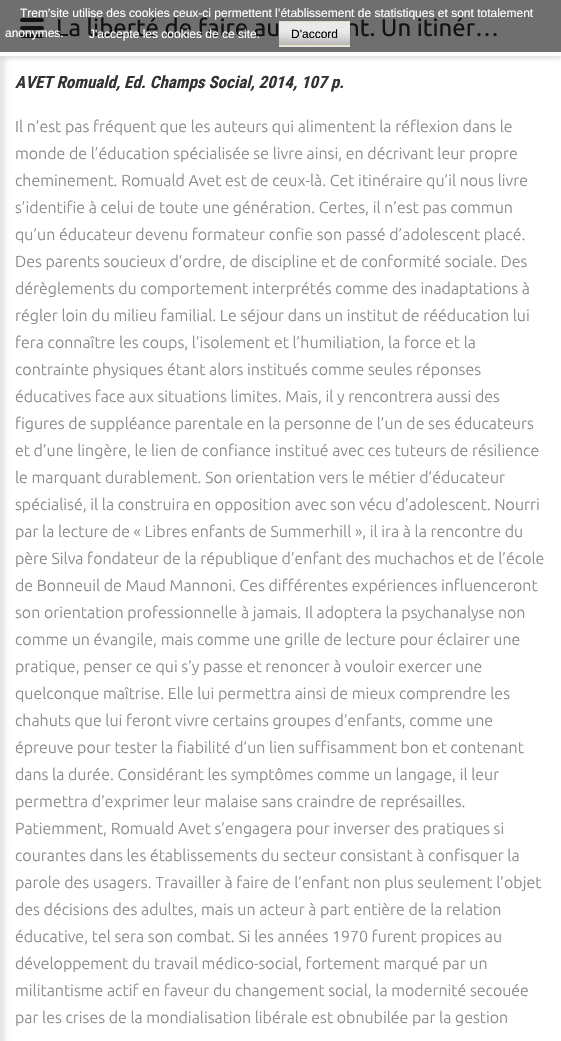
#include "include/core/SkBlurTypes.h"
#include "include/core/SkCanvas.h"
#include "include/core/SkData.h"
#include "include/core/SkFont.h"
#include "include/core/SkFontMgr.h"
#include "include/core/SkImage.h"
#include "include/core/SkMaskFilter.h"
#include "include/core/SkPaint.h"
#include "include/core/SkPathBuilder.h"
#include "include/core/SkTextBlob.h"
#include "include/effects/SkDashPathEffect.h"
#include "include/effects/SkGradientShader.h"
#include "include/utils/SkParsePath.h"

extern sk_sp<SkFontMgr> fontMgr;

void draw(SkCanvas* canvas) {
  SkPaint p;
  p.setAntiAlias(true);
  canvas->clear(SK_ColorWHITE);
  p.setColor(SkColorSetARGB(26, 0, 0, 0));
  p.setMaskFilter(SkMaskFilter::MakeBlur(kNormal_SkBlurStyle, 1.5f));
  canvas->drawRect(SkRect::MakeLTRB(0, 3, 561, 59), p);
  p.setMaskFilter(nullptr);
  p.setMaskFilter(SkMaskFilter::MakeBlur(kNormal_SkBlurStyle, 2.5f));
  canvas->drawRect(SkRect::MakeLTRB(-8, 56, 5, 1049), p);
  p.setMaskFilter(nullptr);
  p.setColor(SK_ColorWHITE);
  canvas->drawRect(SkRect::MakeLTRB(0, 1, 561, 56), p);
  p.setColor(SK_ColorBLACK);
  canvas->drawPath(SkPathBuilder().moveTo(42, 30).lineTo(22, 30).cubicTo(21, 30, 20, 29, 20, 28).cubicTo(20, 27, 21, 26, 22, 26).lineTo(42, 26).cubicTo(43, 26, 44, 27, 44, 28).cubicTo(44, 29, 43, 30, 42, 30).close().moveTo(42, 38).lineTo(22, 38).cubicTo(21, 38, 20, 37, 20, 36).cubicTo(20, 35, 21, 34, 22, 34).lineTo(42, 34).cubicTo(43, 34, 44, 35, 44, 36).cubicTo(44, 37, 43, 38, 42, 38).close().moveTo(42, 22).lineTo(22, 22).cubicTo(21, 22, 20, 21, 20, 20).cubicTo(20, 19, 21, 18, 22, 18).lineTo(42, 18).cubicTo(43, 18, 44, 19, 44, 20).cubicTo(44, 21, 43, 22, 42, 22).close().detach(), p);
  SkFont font1(fontMgr->matchFamilyStyle("Ubuntu", SkFontStyle::Normal()), 24);
  font1.setSubpixel(true);
  canvas->drawString("La liberté de faire au", 56, 36, font1, p);
  canvas->drawString("nt. Un itinér…", 346, 36, font1, p);
  p.setColor(SkColorSetARGB(163, 29, 29, 29));
  canvas->drawRect(SkRect::MakeLTRB(0, 0, 561, 52), p);
  canvas->drawImageRect(SkImages::DeferredFromEncodedData(SkData::MakeFromFileName("images/1.png")), SkRect::MakeLTRB(279, 21, 350, 47), SkSamplingOptions());
  SkFont font2(fontMgr->matchFamilyStyle("Liberation Sans", SkFontStyle::Normal()), 12);
  font2.setSubpixel(true);
  p.setColor(SK_ColorBLACK);
  canvas->drawString("D'accord", 291, 38, font2, p);
  p.setColor(SK_ColorWHITE);
  canvas->drawString("J'accepte les cookies de ce site.", 89, 38, font2, p);
  canvas->drawString("anonymes.", 5, 37, font2, p);
  canvas->drawString("Trem'site utilise des cookies ceux-ci permettent l’établissement de statistiques et sont totalement", 20, 17, font2, p);
  SkFont font3(fontMgr->matchFamilyStyle("Roboto Condensed", SkFontStyle::BoldItalic()), 17);
  font3.setSubpixel(true);
  p.setColor(SkColorSetRGB(51, 51, 51));
  canvas->drawString("AVET Romuald, Ed. Champs Social, 2014, 107 p.", 15, 88, font3, p);
  SkFont font4(fontMgr->matchFamilyStyle("Ubuntu", SkFontStyle(300, SkFontStyle::kNormal_Width, SkFontStyle::kUpright_Slant)), 16);
  font4.setSubpixel(true);
  p.setColor(SkColorSetRGB(136, 136, 136));
  canvas->drawString("Il n’est pas fréquent que les auteurs qui alimentent la réflexion dans le", 15, 132, font4, p);
  canvas->drawString("monde de l’éducation spécialisée se livre ainsi, en décrivant leur propre", 15, 159, font4, p);
  canvas->drawString("cheminement. Romuald Avet est de ceux-là. Cet itinéraire qu’il nous livre", 15, 186, font4, p);
  canvas->drawString("s’identifie à celui de toute une génération. Certes, il n’est pas commun", 15, 213, font4, p);
  canvas->drawString("qu’un éducateur devenu formateur confie son passé d’adolescent placé.", 15, 240, font4, p);
  canvas->drawString("Des parents soucieux d’ordre, de discipline et de conformité sociale. Des", 15, 267, font4, p);
  canvas->drawString("dérèglements du comportement interprétés comme des inadaptations à", 15, 294, font4, p);
  canvas->drawString("régler loin du milieu familial. Le séjour dans un institut de rééducation lui", 15, 321, font4, p);
  canvas->drawString("fera connaître les coups, l’isolement et l’humiliation, la force et la", 15, 348, font4, p);
  canvas->drawString("contrainte physiques étant alors institués comme seules réponses", 15, 375, font4, p);
  canvas->drawString("éducatives face aux situations limites. Mais, il y rencontrera aussi des", 15, 402, font4, p);
  canvas->drawString("figures de suppléance parentale en la personne de l’un de ses éducateurs", 15, 429, font4, p);
  canvas->drawString("et d’une lingère, le lien de confiance institué avec ces tuteurs de résilience", 15, 456, font4, p);
  canvas->drawString("le marquant durablement. Son orientation vers le métier d’éducateur", 15, 483, font4, p);
  canvas->drawString("spécialisé, il la construira en opposition avec son vécu d’adolescent. Nourri", 15, 510, font4, p);
  canvas->drawString("par la lecture de « Libres enfants de Summerhill », il ira à la rencontre du", 15, 537, font4, p);
  canvas->drawString("père Silva fondateur de la république d’enfant des muchachos et de l’école", 15, 564, font4, p);
  canvas->drawString("de Bonneuil de Maud Mannoni. Ces différentes expériences influenceront", 15, 591, font4, p);
  canvas->drawString("son orientation professionnelle à jamais. Il adoptera la psychanalyse non", 15, 618, font4, p);
  canvas->drawString("comme un évangile, mais comme une grille de lecture pour éclairer une", 15, 645, font4, p);
  canvas->drawString("pratique, penser ce qui s’y passe et renoncer à vouloir exercer une", 15, 672, font4, p);
  canvas->drawString("quelconque maîtrise. Elle lui permettra ainsi de mieux comprendre les", 15, 699, font4, p);
  canvas->drawString("chahuts que lui feront vivre certains groupes d’enfants, comme une", 15, 726, font4, p);
  canvas->drawString("épreuve pour tester la fiabilité d’un lien suffisamment bon et contenant", 15, 753, font4, p);
  canvas->drawString("dans la durée. Considérant les symptômes comme un langage, il leur", 15, 780, font4, p);
  canvas->drawString("permettra d’exprimer leur malaise sans craindre de représailles.", 15, 807, font4, p);
  canvas->drawString("Patiemment, Romuald Avet s’engagera pour inverser des pratiques si", 15, 834, font4, p);
  canvas->drawString("courantes dans les établissements du secteur consistant à confisquer la", 15, 861, font4, p);
  canvas->drawString("parole des usagers. Travailler à faire de l’enfant non plus seulement l’objet", 15, 888, font4, p);
  canvas->drawString("des décisions des adultes, mais un acteur à part entière de la relation", 15, 915, font4, p);
  canvas->drawString("éducative, tel sera son combat. Si les années 1970 furent propices au", 15, 942, font4, p);
  canvas->drawString("développement du travail médico-social, fortement marqué par un", 15, 969, font4, p);
  canvas->drawString("militantisme actif en faveur du changement social, la modernité secouée", 15, 996, font4, p);
  canvas->drawString("par les crises de la mondialisation libérale est obnubilée par la gestion", 15, 1023, font4, p);
}
